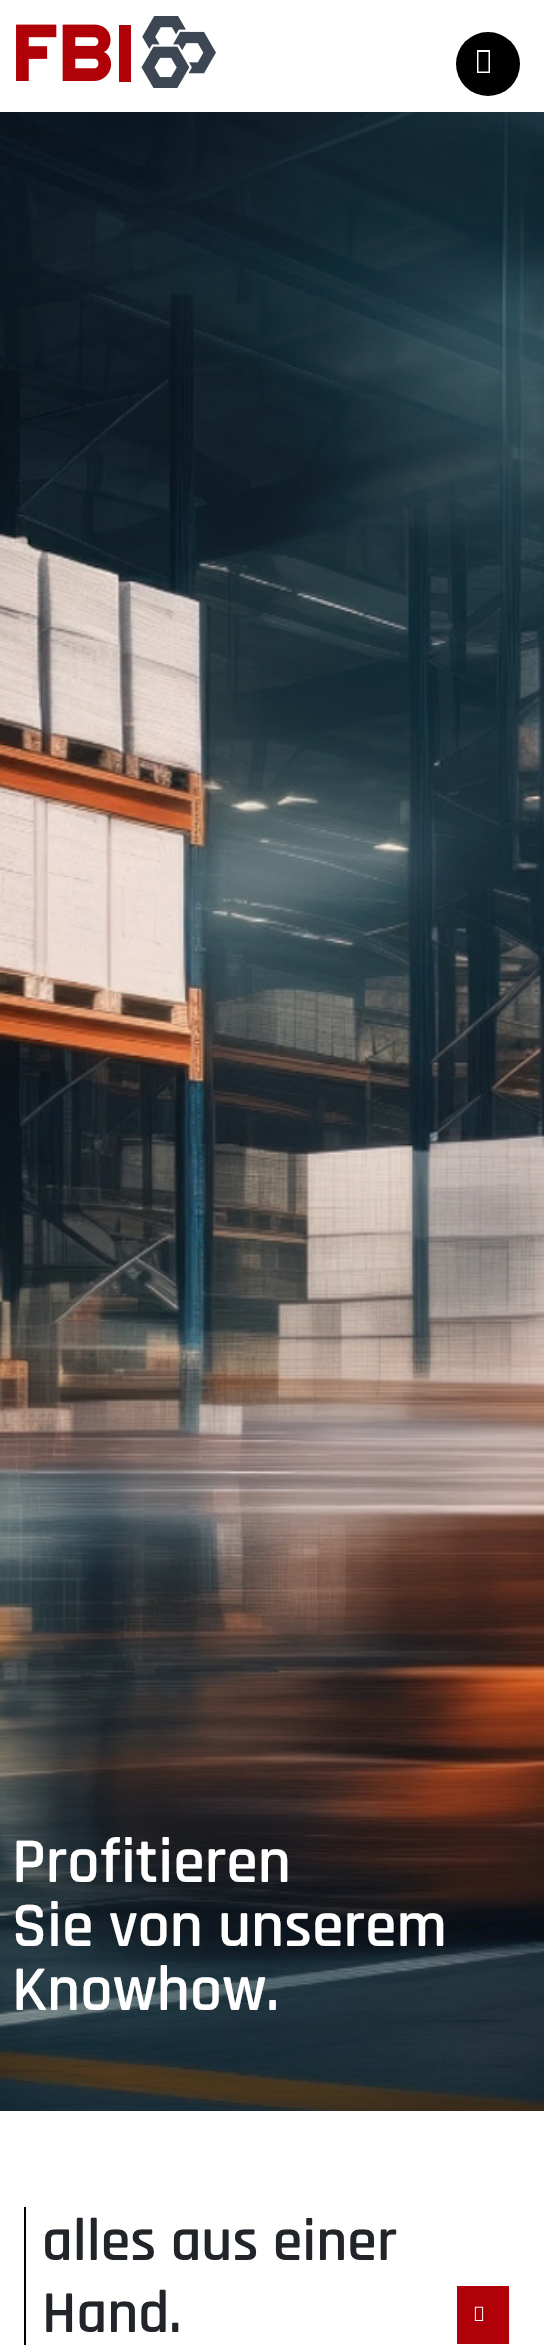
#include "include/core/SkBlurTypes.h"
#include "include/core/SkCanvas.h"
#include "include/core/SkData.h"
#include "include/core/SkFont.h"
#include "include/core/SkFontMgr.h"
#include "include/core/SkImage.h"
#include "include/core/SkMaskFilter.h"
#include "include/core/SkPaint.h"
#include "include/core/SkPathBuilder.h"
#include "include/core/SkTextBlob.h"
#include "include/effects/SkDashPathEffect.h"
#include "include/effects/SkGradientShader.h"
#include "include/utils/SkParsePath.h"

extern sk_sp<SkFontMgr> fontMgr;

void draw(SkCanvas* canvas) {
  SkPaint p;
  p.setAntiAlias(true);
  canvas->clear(SK_ColorWHITE);
  canvas->drawImageRect(SkImages::DeferredFromEncodedData(SkData::MakeFromFileName("images/1.png")), SkRect::MakeLTRB(16, 16, 216, 88), SkSamplingOptions());
  p.setColor(SK_ColorBLACK);
  canvas->drawCircle(488, 64, 32, p);
  p.setColor(SK_ColorWHITE);
  canvas->drawPath(SkPathBuilder().moveTo(477, 73).lineTo(477, 50).lineTo(490, 50).lineTo(490, 73).close().moveTo(478.5f, 71.5f).lineTo(488.5f, 71.5f).lineTo(488.5f, 52).lineTo(478.5f, 52).close().detach(), p);
  canvas->drawImageRect(SkImages::DeferredFromEncodedData(SkData::MakeFromFileName("images/2.png")), SkRect::MakeLTRB(0, 112, 544, 2111), SkSamplingOptions());
  p.setColor(SK_ColorBLACK);
  canvas->drawRect(SkRect::MakeLTRB(24, 2207, 26, 2345), p);
  p.setColor(SkColorSetRGB(176, 0, 8));
  canvas->drawRect(SkRect::MakeLTRB(457, 2286, 509, 2344), p);
  canvas->drawImageRect(SkImages::DeferredFromEncodedData(SkData::MakeFromFileName("images/3.png")), SkRect::MakeLTRB(474, 2306, 484, 2321), SkSamplingOptions());
  SkFont font1(fontMgr->matchFamilyStyle("Rajdhani", SkFontStyle(600, SkFontStyle::kNormal_Width, SkFontStyle::kUpright_Slant)), 64);
  font1.setSubpixel(true);
  p.setColor(SK_ColorWHITE);
  canvas->drawString("Profitieren", 12, 1882, font1, p);
  canvas->drawString("Sie von unserem", 12, 1946, font1, p);
  canvas->drawString("Knowhow.", 12, 2010, font1, p);
  SkFont font2(fontMgr->matchFamilyStyle("Rajdhani", SkFontStyle(600, SkFontStyle::kNormal_Width, SkFontStyle::kUpright_Slant)), 60);
  font2.setSubpixel(true);
  p.setColor(SkColorSetRGB(33, 37, 41));
  canvas->drawString("alles aus einer", 42, 2260, font2, p);
  canvas->drawString("Hand.", 42, 2332, font2, p);
}
